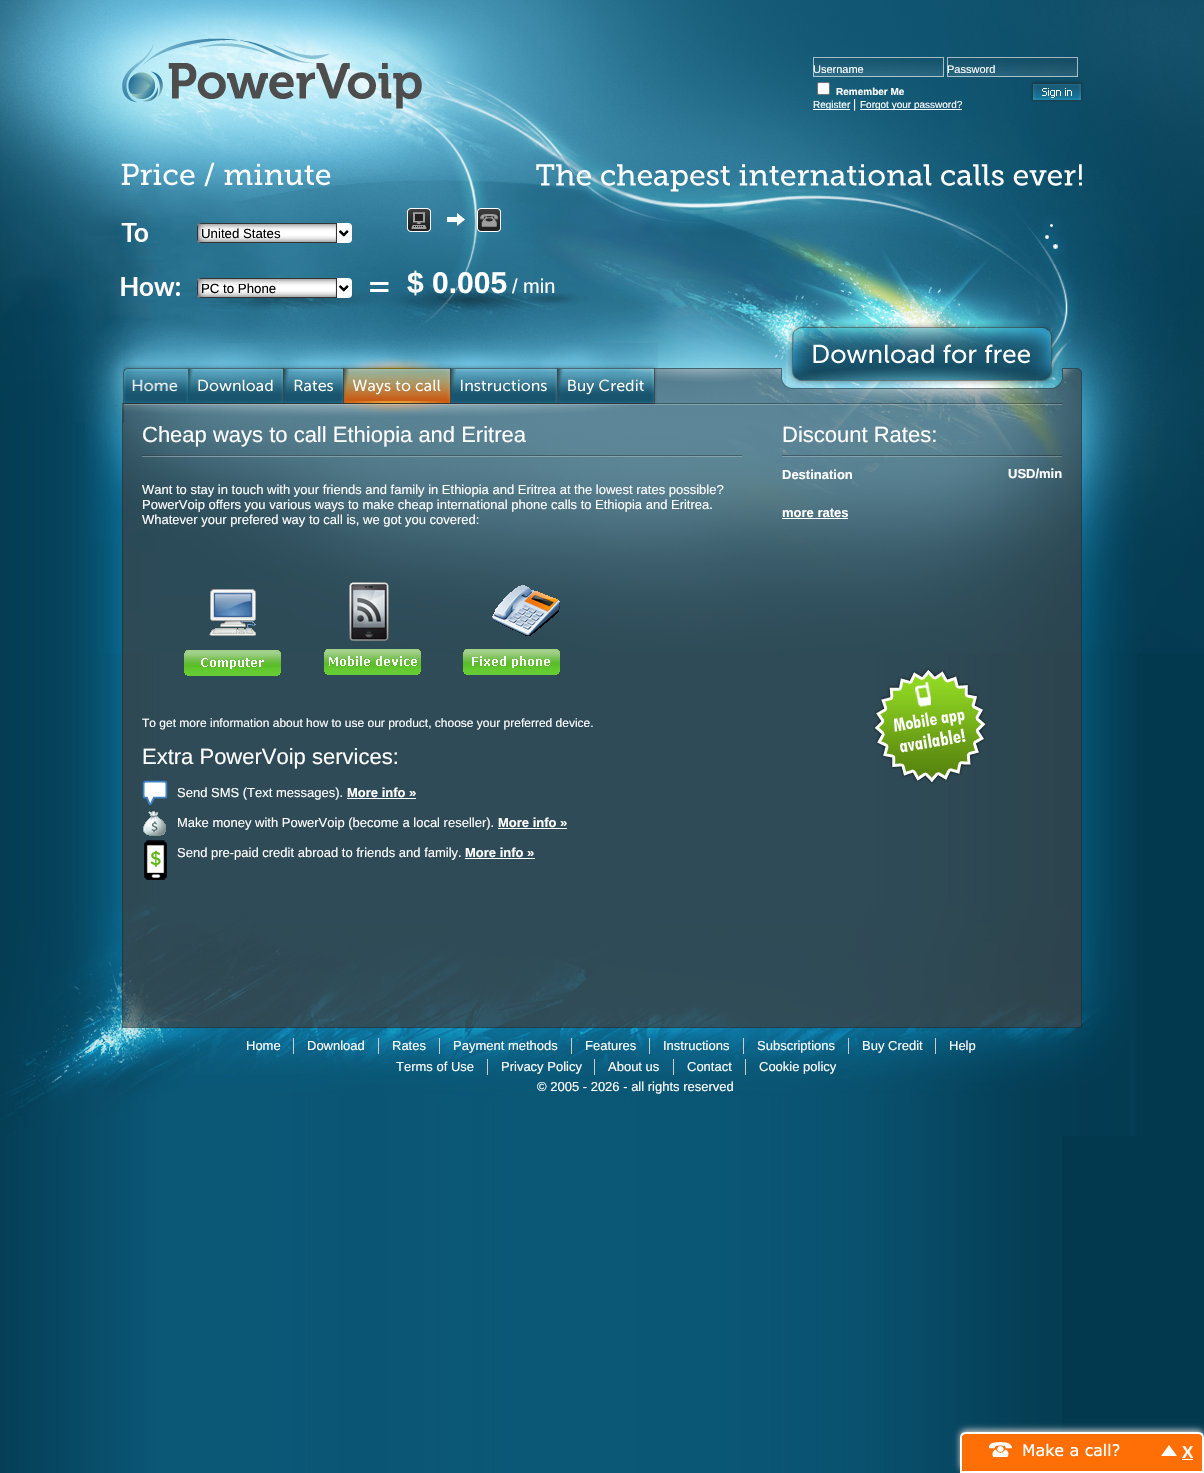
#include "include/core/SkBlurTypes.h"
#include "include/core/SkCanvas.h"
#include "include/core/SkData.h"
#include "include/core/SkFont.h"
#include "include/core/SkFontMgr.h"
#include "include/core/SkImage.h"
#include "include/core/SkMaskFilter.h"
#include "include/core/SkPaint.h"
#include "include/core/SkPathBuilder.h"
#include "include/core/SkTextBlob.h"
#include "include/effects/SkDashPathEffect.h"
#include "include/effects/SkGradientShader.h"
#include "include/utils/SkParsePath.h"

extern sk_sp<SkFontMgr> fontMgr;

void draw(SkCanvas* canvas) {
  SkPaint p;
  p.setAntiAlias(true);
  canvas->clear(SkColorSetRGB(3, 57, 79));
  canvas->drawImageRect(SkImages::DeferredFromEncodedData(SkData::MakeFromFileName("images/1.png")), SkRect::MakeLTRB(0, 1136, 1062, 1473), SkSamplingOptions());
  canvas->drawImageRect(SkImages::DeferredFromEncodedData(SkData::MakeFromFileName("images/2.png")), SkRect::MakeLTRB(0, 423, 1137, 1136), SkSamplingOptions());
  canvas->drawImageRect(SkImages::DeferredFromEncodedData(SkData::MakeFromFileName("images/3.png")), SkRect::MakeLTRB(0, 0, 1204, 423), SkSamplingOptions());
  canvas->drawImageRect(SkImages::DeferredFromEncodedData(SkData::MakeFromFileName("images/4.png")), SkRect::MakeLTRB(813, 57, 944, 77), SkSamplingOptions());
  canvas->drawImageRect(SkImages::DeferredFromEncodedData(SkData::MakeFromFileName("images/5.png")), SkRect::MakeLTRB(947, 57, 1078, 77), SkSamplingOptions());
  p.setColor(SK_ColorWHITE);
  canvas->drawRoundRect(SkRect::MakeLTRB(817.5f, 82.5f, 829.5f, 94.5f), 1.5f, 1.5f, p);
  p.setStyle(SkPaint::kStroke_Style);
  p.setStrokeWidth(1);
  p.setColor(SkColorSetRGB(118, 118, 118));
  canvas->drawRoundRect(SkRect::MakeLTRB(817.5f, 82.5f, 829.5f, 94.5f), 1.5f, 1.5f, p);
  canvas->drawImageRect(SkImages::DeferredFromEncodedData(SkData::MakeFromFileName("images/6.png")), SkRect::MakeLTRB(1030, 80, 1083, 102), SkSamplingOptions());
  p.setStyle(SkPaint::kFill_Style);
  p.setColor(SK_ColorWHITE);
  canvas->drawRect(SkRect::MakeLTRB(813, 109, 850, 110), p);
  canvas->drawRect(SkRect::MakeLTRB(860, 109, 962, 110), p);
  canvas->drawRoundRect(SkRect::MakeLTRB(197, 223, 352, 243), 4, 4, p);
  canvas->drawImageRect(SkImages::DeferredFromEncodedData(SkData::MakeFromFileName("images/7.png")), SkRect::MakeLTRB(197, 223, 349, 243), SkSamplingOptions());
  p.setStyle(SkPaint::kStroke_Style);
  p.setStrokeWidth(2);
  p.setColor(SK_ColorBLACK);
  canvas->drawPath(SkPathBuilder().moveTo(339.5f, 231).lineTo(343.5f, 235).lineTo(347.5f, 231).detach(), p);
  p.setStyle(SkPaint::kFill_Style);
  p.setColor(SK_ColorWHITE);
  canvas->drawRoundRect(SkRect::MakeLTRB(197, 278, 352, 298), 4, 4, p);
  canvas->drawImageRect(SkImages::DeferredFromEncodedData(SkData::MakeFromFileName("images/8.png")), SkRect::MakeLTRB(197, 278, 349, 298), SkSamplingOptions());
  p.setStyle(SkPaint::kStroke_Style);
  p.setColor(SK_ColorBLACK);
  canvas->drawPath(SkPathBuilder().moveTo(339.5f, 286).lineTo(343.5f, 290).lineTo(347.5f, 286).detach(), p);
  canvas->drawImageRect(SkImages::DeferredFromEncodedData(SkData::MakeFromFileName("images/9.png")), SkRect::MakeLTRB(407, 208, 431, 232), SkSamplingOptions());
  canvas->drawImageRect(SkImages::DeferredFromEncodedData(SkData::MakeFromFileName("images/10.png")), SkRect::MakeLTRB(447, 213, 465, 226), SkSamplingOptions());
  canvas->drawImageRect(SkImages::DeferredFromEncodedData(SkData::MakeFromFileName("images/11.png")), SkRect::MakeLTRB(477, 208, 501, 232), SkSamplingOptions());
  canvas->drawImageRect(SkImages::DeferredFromEncodedData(SkData::MakeFromFileName("images/12.png")), SkRect::MakeLTRB(123, 343, 189, 423), SkSamplingOptions());
  canvas->drawImageRect(SkImages::DeferredFromEncodedData(SkData::MakeFromFileName("images/13.png")), SkRect::MakeLTRB(188, 343, 284, 406), SkSamplingOptions());
  canvas->drawImageRect(SkImages::DeferredFromEncodedData(SkData::MakeFromFileName("images/14.png")), SkRect::MakeLTRB(284, 344, 344, 406), SkSamplingOptions());
  canvas->drawImageRect(SkImages::DeferredFromEncodedData(SkData::MakeFromFileName("images/15.png")), SkRect::MakeLTRB(344, 343, 451, 413), SkSamplingOptions());
  canvas->drawImageRect(SkImages::DeferredFromEncodedData(SkData::MakeFromFileName("images/16.png")), SkRect::MakeLTRB(451, 343, 558, 406), SkSamplingOptions());
  canvas->drawImageRect(SkImages::DeferredFromEncodedData(SkData::MakeFromFileName("images/17.png")), SkRect::MakeLTRB(558, 343, 658, 405), SkSamplingOptions());
  canvas->drawImageRect(SkImages::DeferredFromEncodedData(SkData::MakeFromFileName("images/18.png")), SkRect::MakeLTRB(786, 322, 1057, 386), SkSamplingOptions());
  canvas->drawImageRect(SkImages::DeferredFromEncodedData(SkData::MakeFromFileName("images/19.png")), SkRect::MakeLTRB(85, 423, 1204, 653), SkSamplingOptions());
  canvas->drawImageRect(SkImages::DeferredFromEncodedData(SkData::MakeFromFileName("images/20.png")), SkRect::MakeLTRB(142, 455, 742, 457), SkSamplingOptions());
  canvas->drawImageRect(SkImages::DeferredFromEncodedData(SkData::MakeFromFileName("images/21.png")), SkRect::MakeLTRB(209, 589, 256, 636), SkSamplingOptions());
  canvas->drawImageRect(SkImages::DeferredFromEncodedData(SkData::MakeFromFileName("images/22.png")), SkRect::MakeLTRB(184, 650, 281, 676), SkSamplingOptions());
  canvas->drawImageRect(SkImages::DeferredFromEncodedData(SkData::MakeFromFileName("images/23.png")), SkRect::MakeLTRB(349, 582, 389, 641), SkSamplingOptions());
  canvas->drawImageRect(SkImages::DeferredFromEncodedData(SkData::MakeFromFileName("images/24.png")), SkRect::MakeLTRB(324, 649, 421, 675), SkSamplingOptions());
  canvas->drawImageRect(SkImages::DeferredFromEncodedData(SkData::MakeFromFileName("images/25.png")), SkRect::MakeLTRB(492, 585, 560, 636), SkSamplingOptions());
  canvas->drawImageRect(SkImages::DeferredFromEncodedData(SkData::MakeFromFileName("images/26.png")), SkRect::MakeLTRB(463, 649, 560, 675), SkSamplingOptions());
  canvas->drawImageRect(SkImages::DeferredFromEncodedData(SkData::MakeFromFileName("images/27.png")), SkRect::MakeLTRB(142, 780, 168, 806), SkSamplingOptions());
  p.setStyle(SkPaint::kFill_Style);
  p.setColor(SK_ColorWHITE);
  canvas->drawRect(SkRect::MakeLTRB(347, 798, 416, 799), p);
  canvas->drawImageRect(SkImages::DeferredFromEncodedData(SkData::MakeFromFileName("images/28.png")), SkRect::MakeLTRB(143, 811, 166, 836), SkSamplingOptions());
  canvas->drawRect(SkRect::MakeLTRB(498, 828, 567, 829), p);
  canvas->drawImageRect(SkImages::DeferredFromEncodedData(SkData::MakeFromFileName("images/29.png")), SkRect::MakeLTRB(144, 840, 167, 880), SkSamplingOptions());
  canvas->drawRect(SkRect::MakeLTRB(465, 858, 535, 859), p);
  canvas->drawImageRect(SkImages::DeferredFromEncodedData(SkData::MakeFromFileName("images/30.png")), SkRect::MakeLTRB(782, 455, 1062, 457), SkSamplingOptions());
  canvas->drawRect(SkRect::MakeLTRB(782, 518, 848, 519), p);
  canvas->drawImageRect(SkImages::DeferredFromEncodedData(SkData::MakeFromFileName("images/31.png")), SkRect::MakeLTRB(873, 668, 987, 784), SkSamplingOptions());
  canvas->drawImageRect(SkImages::DeferredFromEncodedData(SkData::MakeFromFileName("images/32.png")), SkRect::MakeLTRB(0, 903, 1129, 1136), SkSamplingOptions());
  p.setColor(SkColorSetRGB(204, 204, 204));
  canvas->drawRect(SkRect::MakeLTRB(293, 1038, 294, 1054), p);
  canvas->drawRect(SkRect::MakeLTRB(378, 1038, 379, 1054), p);
  canvas->drawRect(SkRect::MakeLTRB(439, 1038, 440, 1054), p);
  canvas->drawRect(SkRect::MakeLTRB(571, 1038, 572, 1054), p);
  canvas->drawRect(SkRect::MakeLTRB(649, 1038, 650, 1054), p);
  canvas->drawRect(SkRect::MakeLTRB(743, 1038, 744, 1054), p);
  canvas->drawRect(SkRect::MakeLTRB(848, 1038, 849, 1054), p);
  canvas->drawRect(SkRect::MakeLTRB(935, 1038, 936, 1054), p);
  canvas->drawRect(SkRect::MakeLTRB(487, 1059, 488, 1075), p);
  canvas->drawRect(SkRect::MakeLTRB(594, 1059, 595, 1075), p);
  canvas->drawRect(SkRect::MakeLTRB(673, 1059, 674, 1075), p);
  canvas->drawRect(SkRect::MakeLTRB(745, 1059, 746, 1075), p);
  p.setMaskFilter(SkMaskFilter::MakeBlur(kNormal_SkBlurStyle, 3));
  canvas->drawRoundRect(SkRect::MakeLTRB(960, 1430, 1204, 1471), 6, 6, p);
  p.setMaskFilter(nullptr);
  p.setColor(SkColorSetRGB(255, 111, 6));
  canvas->drawPath(SkPathBuilder().moveTo(966, 1433).lineTo(1198, 1433).cubicTo(1201, 1433, 1203, 1435, 1203, 1438).lineTo(1203, 1472).lineTo(961, 1472).lineTo(961, 1438).cubicTo(961, 1435, 963, 1433, 966, 1433).close().detach(), p);
  p.setStyle(SkPaint::kStroke_Style);
  p.setColor(SK_ColorWHITE);
  canvas->drawPath(SkPathBuilder().moveTo(966, 1433).lineTo(1198, 1433).cubicTo(1201, 1433, 1203, 1435, 1203, 1438).lineTo(1203, 1472).lineTo(961, 1472).lineTo(961, 1438).cubicTo(961, 1435, 963, 1433, 966, 1433).close().detach(), p);
  p.setStyle(SkPaint::kFill_Style);
  p.setColor(SkColorSetRGB(255, 111, 6));
  canvas->drawRect(SkRect::MakeLTRB(962, 1436, 963, 1438), p);
  canvas->drawImageRect(SkImages::DeferredFromEncodedData(SkData::MakeFromFileName("images/33.png")), SkRect::MakeLTRB(989, 1442, 1177, 1457), SkSamplingOptions());
  canvas->drawRect(SkRect::MakeLTRB(1201, 1436, 1202, 1438), p);
  p.setColor(SK_ColorWHITE);
  canvas->drawRect(SkRect::MakeLTRB(1182, 1459, 1193, 1460), p);
  SkFont font1(fontMgr->matchFamilyStyle("Liberation Sans", SkFontStyle::Normal()), 11);
  font1.setSubpixel(true);
  canvas->drawString("Username", 813, 73, font1, p);
  canvas->drawString("Password", 947, 73, font1, p);
  SkFont font2(fontMgr->matchFamilyStyle("Liberation Sans", SkFontStyle::Bold()), 10);
  font2.setSubpixel(true);
  canvas->drawString("Remember Me", 836, 95, font2, p);
  SkFont font3(fontMgr->matchFamilyStyle("Liberation Sans", SkFontStyle::Normal()), 10);
  font3.setSubpixel(true);
  canvas->drawString("Register", 813, 108, font3, p);
  SkFont font4(fontMgr->matchFamilyStyle("Liberation Sans", SkFontStyle::Normal()), 12);
  font4.setSubpixel(true);
  canvas->drawString("|", 853, 108, font4, p);
  canvas->drawString("Forgot your password?", 860, 108, font3, p);
  SkFont font5(fontMgr->matchFamilyStyle("Liberation Sans", SkFontStyle::Normal()), 13.25f);
  font5.setSubpixel(true);
  p.setColor(SK_ColorBLACK);
  canvas->drawString("United States", 201, 238, font5, p);
  canvas->drawString("PC to Phone", 201, 293, font5, p);
  SkFont font6(fontMgr->matchFamilyStyle("Liberation Sans", SkFontStyle::Bold()), 30);
  font6.setSubpixel(true);
  p.setColor(SK_ColorWHITE);
  canvas->drawString("$ 0.005", 407, 293, font6, p);
  SkFont font7(fontMgr->matchFamilyStyle("Liberation Sans", SkFontStyle::Normal()), 20);
  font7.setSubpixel(true);
  canvas->drawString("/ min", 512, 293, font7, p);
  SkFont font8(fontMgr->matchFamilyStyle("Liberation Sans", SkFontStyle::Normal()), 22);
  font8.setSubpixel(true);
  canvas->drawString("Cheap ways to call Ethiopia and Eritrea", 142, 442, font8, p);
  SkFont font9(fontMgr->matchFamilyStyle("Liberation Sans", SkFontStyle::Normal()), 13);
  font9.setSubpixel(true);
  canvas->drawString("Want to stay in touch with your friends and family in Ethiopia and Eritrea at the lowest rates possible?", 142, 494, font9, p);
  canvas->drawString("PowerVoip offers you various ways to make cheap international phone calls to Ethiopia and Eritrea.", 142, 509, font9, p);
  canvas->drawString("Whatever your prefered way to call is, we got you covered:", 142, 524, font9, p);
  canvas->drawString("To get more information about how to use our product, choose your preferred device.", 142, 727, font4, p);
  canvas->drawString("Extra PowerVoip services:", 142, 764, font8, p);
  canvas->drawString("Send SMS (Text messages).", 177, 797, font9, p);
  SkFont font10(fontMgr->matchFamilyStyle("Liberation Sans", SkFontStyle::Bold()), 13);
  font10.setSubpixel(true);
  canvas->drawString("More info »", 347, 797, font10, p);
  canvas->drawString("Make money with PowerVoip (become a local reseller).", 177, 827, font9, p);
  canvas->drawString("More info »", 498, 827, font10, p);
  canvas->drawString("Send pre-paid credit abroad to friends and family.", 177, 857, font9, p);
  canvas->drawString("More info »", 465, 857, font10, p);
  canvas->drawString("Discount Rates:", 782, 442, font8, p);
  canvas->drawString("Destination", 782, 479, font10, p);
  canvas->drawString("USD/min", 1008, 478, font10, p);
  canvas->drawString("more rates", 782, 517, font10, p);
  canvas->drawString("Home", 246, 1050, font9, p);
  canvas->drawString("Download", 307, 1050, font9, p);
  canvas->drawString("Rates", 392, 1050, font9, p);
  canvas->drawString("Payment methods", 453, 1050, font9, p);
  canvas->drawString("Features", 585, 1050, font9, p);
  canvas->drawString("Instructions", 663, 1050, font9, p);
  canvas->drawString("Subscriptions", 757, 1050, font9, p);
  canvas->drawString("Buy Credit", 862, 1050, font9, p);
  canvas->drawString("Help", 949, 1050, font9, p);
  canvas->drawString("Terms of Use", 396, 1071, font9, p);
  canvas->drawString("Privacy Policy", 501, 1071, font9, p);
  canvas->drawString("About us", 608, 1071, font9, p);
  canvas->drawString("Contact", 687, 1071, font9, p);
  canvas->drawString("Cookie policy", 759, 1071, font9, p);
  canvas->drawString("© 2005 - 2026 - all rights reserved", 537, 1091, font9, p);
  SkFont font11(fontMgr->matchFamilyStyle("Liberation Sans", SkFontStyle::Bold()), 17);
  font11.setSubpixel(true);
  canvas->drawString("X", 1182, 1458, font11, p);
}
